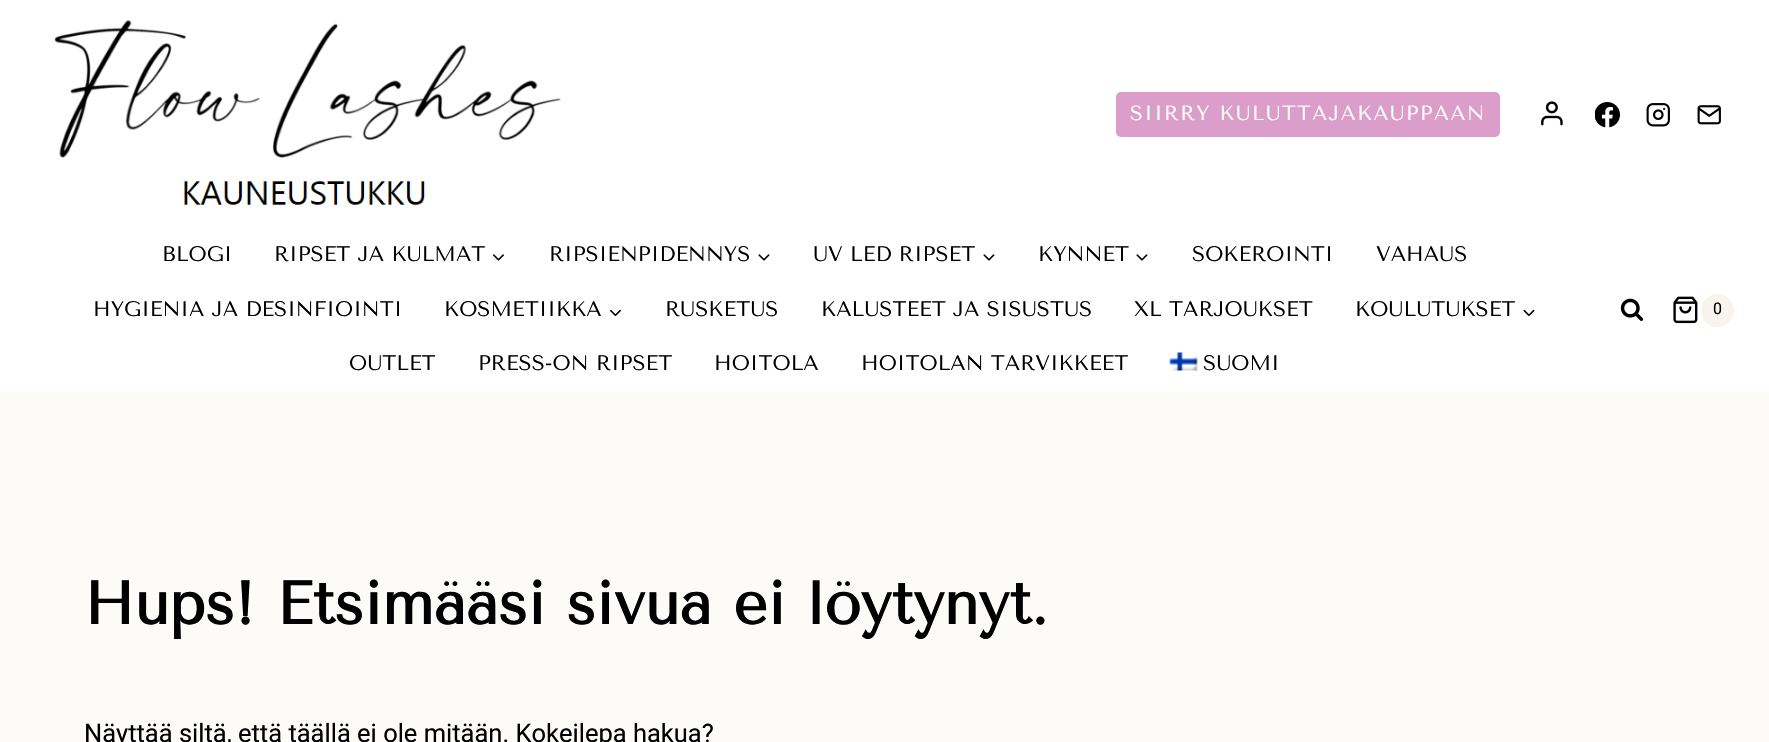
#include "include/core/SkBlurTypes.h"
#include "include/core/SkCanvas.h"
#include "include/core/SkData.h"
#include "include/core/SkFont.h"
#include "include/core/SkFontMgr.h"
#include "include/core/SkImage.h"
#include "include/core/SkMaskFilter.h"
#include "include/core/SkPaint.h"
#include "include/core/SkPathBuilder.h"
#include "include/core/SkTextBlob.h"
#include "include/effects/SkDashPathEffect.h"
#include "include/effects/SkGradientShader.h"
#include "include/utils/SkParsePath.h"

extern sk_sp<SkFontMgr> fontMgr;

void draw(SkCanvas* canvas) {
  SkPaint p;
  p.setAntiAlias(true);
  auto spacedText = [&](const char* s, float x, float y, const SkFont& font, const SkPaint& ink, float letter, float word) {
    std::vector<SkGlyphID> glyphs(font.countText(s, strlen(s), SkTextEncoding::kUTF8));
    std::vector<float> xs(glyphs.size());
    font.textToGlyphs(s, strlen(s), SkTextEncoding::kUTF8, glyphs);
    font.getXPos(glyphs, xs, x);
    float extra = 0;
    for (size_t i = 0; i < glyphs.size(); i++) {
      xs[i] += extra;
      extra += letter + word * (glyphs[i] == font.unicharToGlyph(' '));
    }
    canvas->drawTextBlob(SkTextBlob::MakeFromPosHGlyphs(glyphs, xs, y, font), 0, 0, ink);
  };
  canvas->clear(SkColorSetRGB(252, 251, 247));
  p.setColor(SK_ColorWHITE);
  canvas->drawRect(SkRect::MakeLTRB(0, 0, 1769, 392), p);
  canvas->drawImageRect(SkImages::DeferredFromEncodedData(SkData::MakeFromFileName("images/1.png")), SkRect::MakeLTRB(54, 19, 561, 205), SkSamplingOptions());
  p.setColor(SkColorSetRGB(219, 157, 202));
  canvas->drawRoundRect(SkRect::MakeLTRB(1116, 92, 1500, 137), 5, 5, p);
  canvas->drawImageRect(SkImages::DeferredFromEncodedData(SkData::MakeFromFileName("images/2.png")), SkRect::MakeLTRB(1541, 101, 1563, 126), SkSamplingOptions());
  canvas->drawImageRect(SkImages::DeferredFromEncodedData(SkData::MakeFromFileName("images/3.png")), SkRect::MakeLTRB(1595, 102, 1620, 128), SkSamplingOptions());
  canvas->drawImageRect(SkImages::DeferredFromEncodedData(SkData::MakeFromFileName("images/4.png")), SkRect::MakeLTRB(1646, 103, 1670, 127), SkSamplingOptions());
  canvas->drawImageRect(SkImages::DeferredFromEncodedData(SkData::MakeFromFileName("images/5.png")), SkRect::MakeLTRB(1697, 105, 1721, 125), SkSamplingOptions());
  canvas->drawImageRect(SkImages::DeferredFromEncodedData(SkData::MakeFromFileName("images/6.png")), SkRect::MakeLTRB(493, 254, 504, 261), SkSamplingOptions());
  canvas->drawImageRect(SkImages::DeferredFromEncodedData(SkData::MakeFromFileName("images/7.png")), SkRect::MakeLTRB(758, 254, 770, 261), SkSamplingOptions());
  canvas->drawImageRect(SkImages::DeferredFromEncodedData(SkData::MakeFromFileName("images/7.png")), SkRect::MakeLTRB(983, 254, 995, 261), SkSamplingOptions());
  canvas->drawImageRect(SkImages::DeferredFromEncodedData(SkData::MakeFromFileName("images/7.png")), SkRect::MakeLTRB(1136, 254, 1148, 261), SkSamplingOptions());
  canvas->drawImageRect(SkImages::DeferredFromEncodedData(SkData::MakeFromFileName("images/8.png")), SkRect::MakeLTRB(610, 309, 621, 316), SkSamplingOptions());
  canvas->drawImageRect(SkImages::DeferredFromEncodedData(SkData::MakeFromFileName("images/9.png")), SkRect::MakeLTRB(1523, 309, 1535, 316), SkSamplingOptions());
  canvas->drawImageRect(SkImages::DeferredFromEncodedData(SkData::MakeFromFileName("images/10.png")), SkRect::MakeLTRB(1169, 352, 1198, 371), SkSamplingOptions());
  canvas->drawImageRect(SkImages::DeferredFromEncodedData(SkData::MakeFromFileName("images/11.png")), SkRect::MakeLTRB(1620, 298, 1644, 321), SkSamplingOptions());
  canvas->drawImageRect(SkImages::DeferredFromEncodedData(SkData::MakeFromFileName("images/12.png")), SkRect::MakeLTRB(1673, 296, 1698, 324), SkSamplingOptions());
  p.setColor(SkColorSetRGB(247, 244, 237));
  canvas->drawCircle(1717.5f, 310.5f, 16.5f, p);
  SkFont font1(fontMgr->matchFamilyStyle("Tenor Sans", SkFontStyle::Normal()), 20.4f);
  font1.setSubpixel(true);
  p.setColor(SK_ColorWHITE);
  spacedText("SIIRRY KULUTTAJAKAUPPAAN", 1130, 120, font1, p, 1.5f, 0);
  SkFont font2(fontMgr->matchFamilyStyle("Tenor Sans", SkFontStyle::Normal()), 21);
  font2.setSubpixel(true);
  p.setColor(SK_ColorBLACK);
  canvas->drawString("BLOGI", 162, 261, font2, p);
  canvas->drawString("RIPSET JA KULMAT", 274, 261, font2, p);
  canvas->drawString("RIPSIENPIDENNYS", 549, 261, font2, p);
  canvas->drawString("UV LED RIPSET", 813, 261, font2, p);
  canvas->drawString("KYNNET", 1038, 261, font2, p);
  canvas->drawString("SOKEROINTI", 1192, 261, font2, p);
  canvas->drawString("VAHAUS", 1376, 261, font2, p);
  canvas->drawString("HYGIENIA JA DESINFIOINTI", 93, 316, font2, p);
  canvas->drawString("KOSMETIIKKA", 444, 316, font2, p);
  canvas->drawString("RUSKETUS", 665, 316, font2, p);
  canvas->drawString("KALUSTEET JA SISUSTUS", 821, 316, font2, p);
  canvas->drawString("XL TARJOUKSET", 1134, 316, font2, p);
  canvas->drawString("KOULUTUKSET", 1355, 316, font2, p);
  canvas->drawString("OUTLET", 349, 370, font2, p);
  canvas->drawString("PRESS-ON RIPSET", 478, 370, font2, p);
  canvas->drawString("HOITOLA", 714, 370, font2, p);
  canvas->drawString("HOITOLAN TARVIKKEET", 861, 370, font2, p);
  canvas->drawString("SUOMI", 1203, 370, font2, p);
  SkFont font3(fontMgr->matchFamilyStyle("Roboto", SkFontStyle::Normal()), 16);
  font3.setSubpixel(true);
  canvas->drawString("0", 1713, 314, font3, p);
  SkFont font4(fontMgr->matchFamilyStyle("Tenor Sans", SkFontStyle::Bold()), 60);
  font4.setSubpixel(true);
  canvas->drawString("Hups! Etsimääsi sivua ei löytynyt.", 84, 624, font4, p);
  SkFont font5(fontMgr->matchFamilyStyle("Roboto", SkFontStyle::Normal()), 25.5f);
  font5.setSubpixel(true);
  canvas->drawString("Näyttää siltä, että täällä ei ole mitään. Kokeilepa hakua?", 84, 742, font5, p);
}
